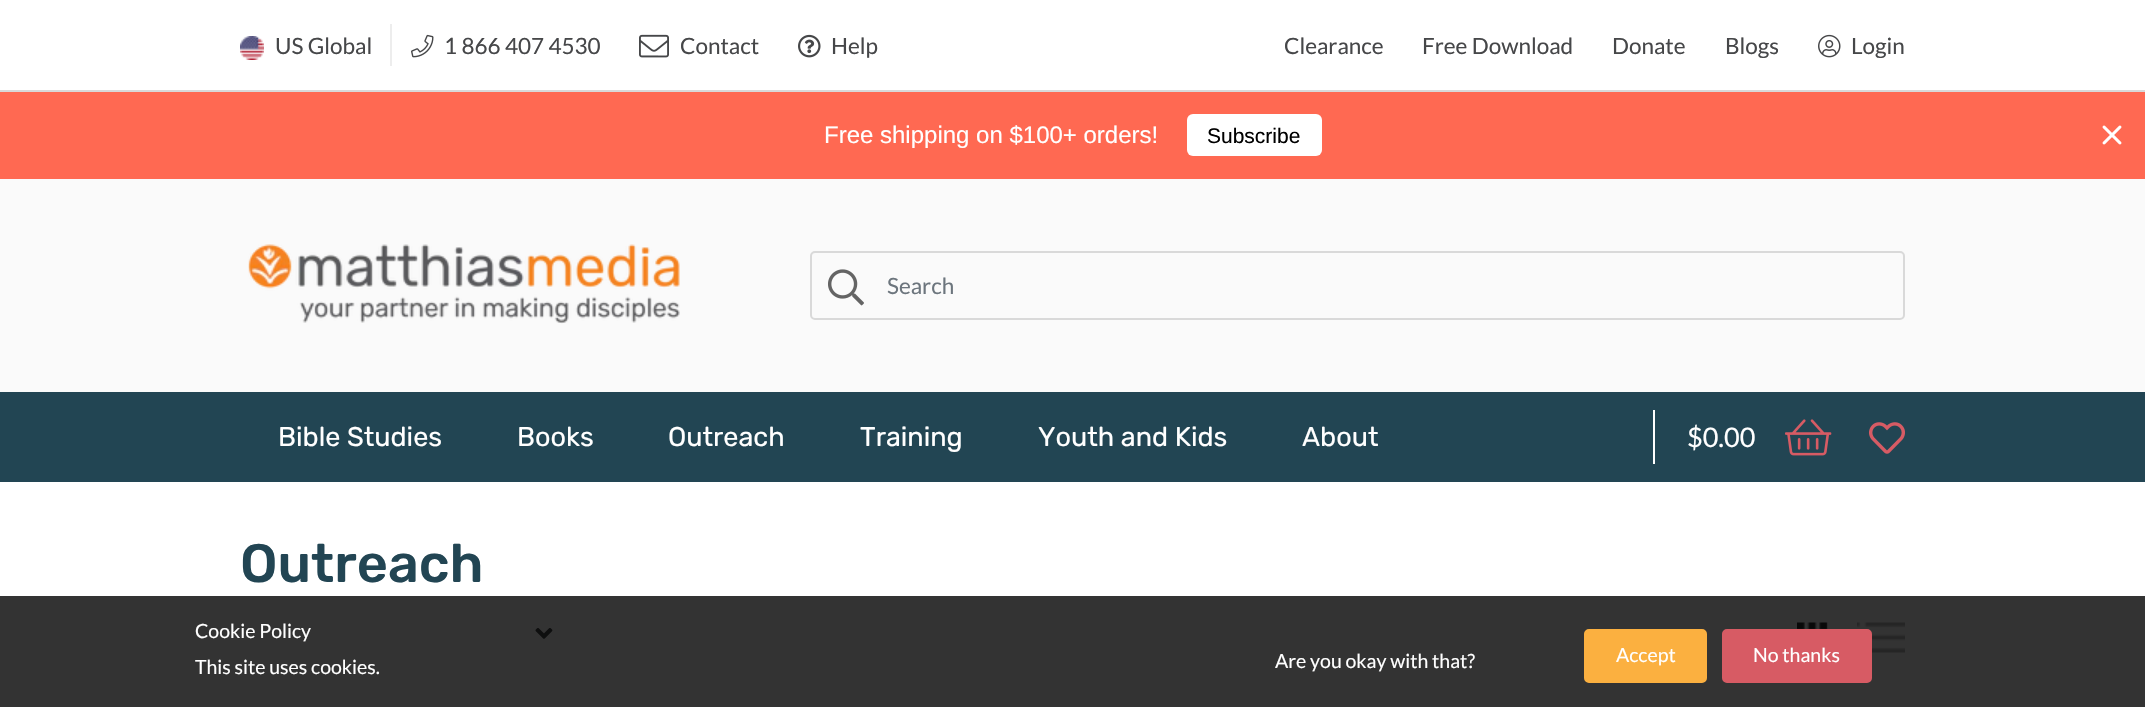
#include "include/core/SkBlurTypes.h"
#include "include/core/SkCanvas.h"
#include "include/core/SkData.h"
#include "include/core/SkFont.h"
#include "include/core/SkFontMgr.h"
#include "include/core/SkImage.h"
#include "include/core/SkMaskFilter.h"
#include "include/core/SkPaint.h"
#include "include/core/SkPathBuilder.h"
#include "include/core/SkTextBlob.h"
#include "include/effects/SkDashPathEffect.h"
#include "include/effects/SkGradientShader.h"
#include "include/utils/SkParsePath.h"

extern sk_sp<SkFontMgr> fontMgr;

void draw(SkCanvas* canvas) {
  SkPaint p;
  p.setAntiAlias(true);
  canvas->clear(SK_ColorWHITE);
  p.setColor(SkColorSetRGB(217, 217, 217));
  canvas->drawRect(SkRect::MakeLTRB(0, 90, 2145, 92), p);
  canvas->drawImageRect(SkImages::DeferredFromEncodedData(SkData::MakeFromFileName("images/1.png")), SkRect::MakeLTRB(240, 36, 264, 60), SkSamplingOptions());
  p.setColor(SkColorSetRGB(237, 237, 237));
  canvas->drawRect(SkRect::MakeLTRB(390, 24, 392, 66), p);
  canvas->drawImageRect(SkImages::DeferredFromEncodedData(SkData::MakeFromFileName("images/2.png")), SkRect::MakeLTRB(411, 34, 434, 58), SkSamplingOptions());
  canvas->drawImageRect(SkImages::DeferredFromEncodedData(SkData::MakeFromFileName("images/3.png")), SkRect::MakeLTRB(639, 34, 669, 58), SkSamplingOptions());
  canvas->drawImageRect(SkImages::DeferredFromEncodedData(SkData::MakeFromFileName("images/4.png")), SkRect::MakeLTRB(798, 34, 821, 58), SkSamplingOptions());
  canvas->drawImageRect(SkImages::DeferredFromEncodedData(SkData::MakeFromFileName("images/5.png")), SkRect::MakeLTRB(1818, 34, 1841, 58), SkSamplingOptions());
  p.setColor(SkColorSetRGB(255, 105, 82));
  canvas->drawRect(SkRect::MakeLTRB(0, 92, 2145, 179), p);
  p.setColor(SK_ColorWHITE);
  canvas->drawRoundRect(SkRect::MakeLTRB(1187, 114, 1322, 156), 6, 6, p);
  canvas->drawImageRect(SkImages::DeferredFromEncodedData(SkData::MakeFromFileName("images/6.png")), SkRect::MakeLTRB(2102, 125, 2122, 145), SkSamplingOptions());
  p.setColor(SkColorSetRGB(250, 250, 250));
  canvas->drawRect(SkRect::MakeLTRB(0, 179, 2145, 392), p);
  canvas->drawImageRect(SkImages::DeferredFromEncodedData(SkData::MakeFromFileName("images/7.png")), SkRect::MakeLTRB(248, 244, 680, 324), SkSamplingOptions());
  p.setStyle(SkPaint::kStroke_Style);
  p.setStrokeWidth(2);
  p.setColor(SkColorSetRGB(217, 217, 217));
  canvas->drawRoundRect(SkRect::MakeLTRB(811, 252, 1904, 319), 4, 4, p);
  canvas->drawImageRect(SkImages::DeferredFromEncodedData(SkData::MakeFromFileName("images/8.png")), SkRect::MakeLTRB(828, 269, 864, 306), SkSamplingOptions());
  p.setStyle(SkPaint::kFill_Style);
  p.setColor(SkColorSetRGB(34, 69, 83));
  canvas->drawRect(SkRect::MakeLTRB(0, 392, 2145, 482), p);
  p.setColor(SK_ColorWHITE);
  canvas->drawRect(SkRect::MakeLTRB(1653, 410, 1655, 464), p);
  canvas->drawImageRect(SkImages::DeferredFromEncodedData(SkData::MakeFromFileName("images/9.png")), SkRect::MakeLTRB(1785, 419, 1832, 456), SkSamplingOptions());
  canvas->drawImageRect(SkImages::DeferredFromEncodedData(SkData::MakeFromFileName("images/10.png")), SkRect::MakeLTRB(1869, 422, 1905, 454), SkSamplingOptions());
  canvas->drawImageRect(SkImages::DeferredFromEncodedData(SkData::MakeFromFileName("images/11.png")), SkRect::MakeLTRB(535, 628, 553, 639), SkSamplingOptions());
  canvas->drawImageRect(SkImages::DeferredFromEncodedData(SkData::MakeFromFileName("images/12.png")), SkRect::MakeLTRB(1797, 622, 1828, 629), SkSamplingOptions());
  canvas->drawImageRect(SkImages::DeferredFromEncodedData(SkData::MakeFromFileName("images/13.png")), SkRect::MakeLTRB(1857, 622, 1905, 653), SkSamplingOptions());
  p.setColor(SkColorSetARGB(204, 0, 0, 0));
  canvas->drawRect(SkRect::MakeLTRB(0, 596, 2145, 707), p);
  p.setColor(SkColorSetRGB(251, 176, 64));
  canvas->drawRoundRect(SkRect::MakeLTRB(1585, 630, 1706, 682), 4, 4, p);
  p.setStyle(SkPaint::kStroke_Style);
  canvas->drawRoundRect(SkRect::MakeLTRB(1585, 630, 1706, 682), 4, 4, p);
  p.setStyle(SkPaint::kFill_Style);
  p.setColor(SkColorSetRGB(215, 91, 100));
  canvas->drawRoundRect(SkRect::MakeLTRB(1723, 630, 1871, 682), 4, 4, p);
  p.setStyle(SkPaint::kStroke_Style);
  canvas->drawRoundRect(SkRect::MakeLTRB(1723, 630, 1871, 682), 4, 4, p);
  SkFont font1(fontMgr->matchFamilyStyle("Lato", SkFontStyle::Normal()), 22.5f);
  font1.setSubpixel(true);
  p.setStyle(SkPaint::kFill_Style);
  p.setColor(SkColorSetRGB(70, 71, 73));
  canvas->drawString("US Global", 275, 54, font1, p);
  canvas->drawString("1 866 407 4530", 444, 54, font1, p);
  canvas->drawString("Contact", 680, 54, font1, p);
  canvas->drawString("Help", 831, 54, font1, p);
  canvas->drawString("Clearance", 1284, 54, font1, p);
  canvas->drawString("Free Download", 1422, 54, font1, p);
  canvas->drawString("Donate", 1612, 54, font1, p);
  canvas->drawString("Blogs", 1725, 54, font1, p);
  canvas->drawString("Login", 1851, 54, font1, p);
  SkFont font2(fontMgr->matchFamilyStyle("Liberation Sans", SkFontStyle::Normal()), 24);
  font2.setSubpixel(true);
  p.setColor(SK_ColorWHITE);
  canvas->drawString("Free shipping on $100+ orders!", 824, 143, font2, p);
  SkFont font3(fontMgr->matchFamilyStyle("Liberation Sans", SkFontStyle::Normal()), 21);
  font3.setSubpixel(true);
  p.setColor(SK_ColorBLACK);
  canvas->drawString("Subscribe", 1207, 143, font3, p);
  p.setColor(SkColorSetRGB(108, 117, 125));
  canvas->drawString("Search", 887, 294, font1, p);
  SkFont font4(fontMgr->matchFamilyStyle("Rubik", SkFontStyle::Normal()), 27);
  font4.setSubpixel(true);
  p.setColor(SK_ColorWHITE);
  canvas->drawString("Bible Studies", 278, 446, font4, p);
  canvas->drawString("Books", 517, 446, font4, p);
  canvas->drawString("Outreach", 668, 446, font4, p);
  canvas->drawString("Training", 860, 446, font4, p);
  canvas->drawString("Youth and Kids", 1038, 446, font4, p);
  canvas->drawString("About", 1302, 446, font4, p);
  SkFont font5(fontMgr->matchFamilyStyle("Lato", SkFontStyle::Normal()), 27);
  font5.setSubpixel(true);
  canvas->drawString("$0.00", 1687, 447, font5, p);
  SkFont font6(fontMgr->matchFamilyStyle("Rubik", SkFontStyle(500, SkFontStyle::kNormal_Width, SkFontStyle::kUpright_Slant)), 54);
  font6.setSubpixel(true);
  p.setColor(SkColorSetRGB(34, 69, 83));
  canvas->drawString("Outreach", 240, 582, font6, p);
  SkFont font7(fontMgr->matchFamilyStyle("Lato", SkFontStyle::Normal()), 19.5f);
  font7.setSubpixel(true);
  p.setColor(SK_ColorWHITE);
  canvas->drawString("Cookie Policy", 195, 638, font7, p);
  canvas->drawString("This site uses cookies.", 195, 674, font7, p);
  canvas->drawString("Are you okay with that?", 1275, 668, font7, p);
  canvas->drawString("Accept", 1616, 662, font7, p);
  canvas->drawString("No thanks", 1753, 662, font7, p);
}
